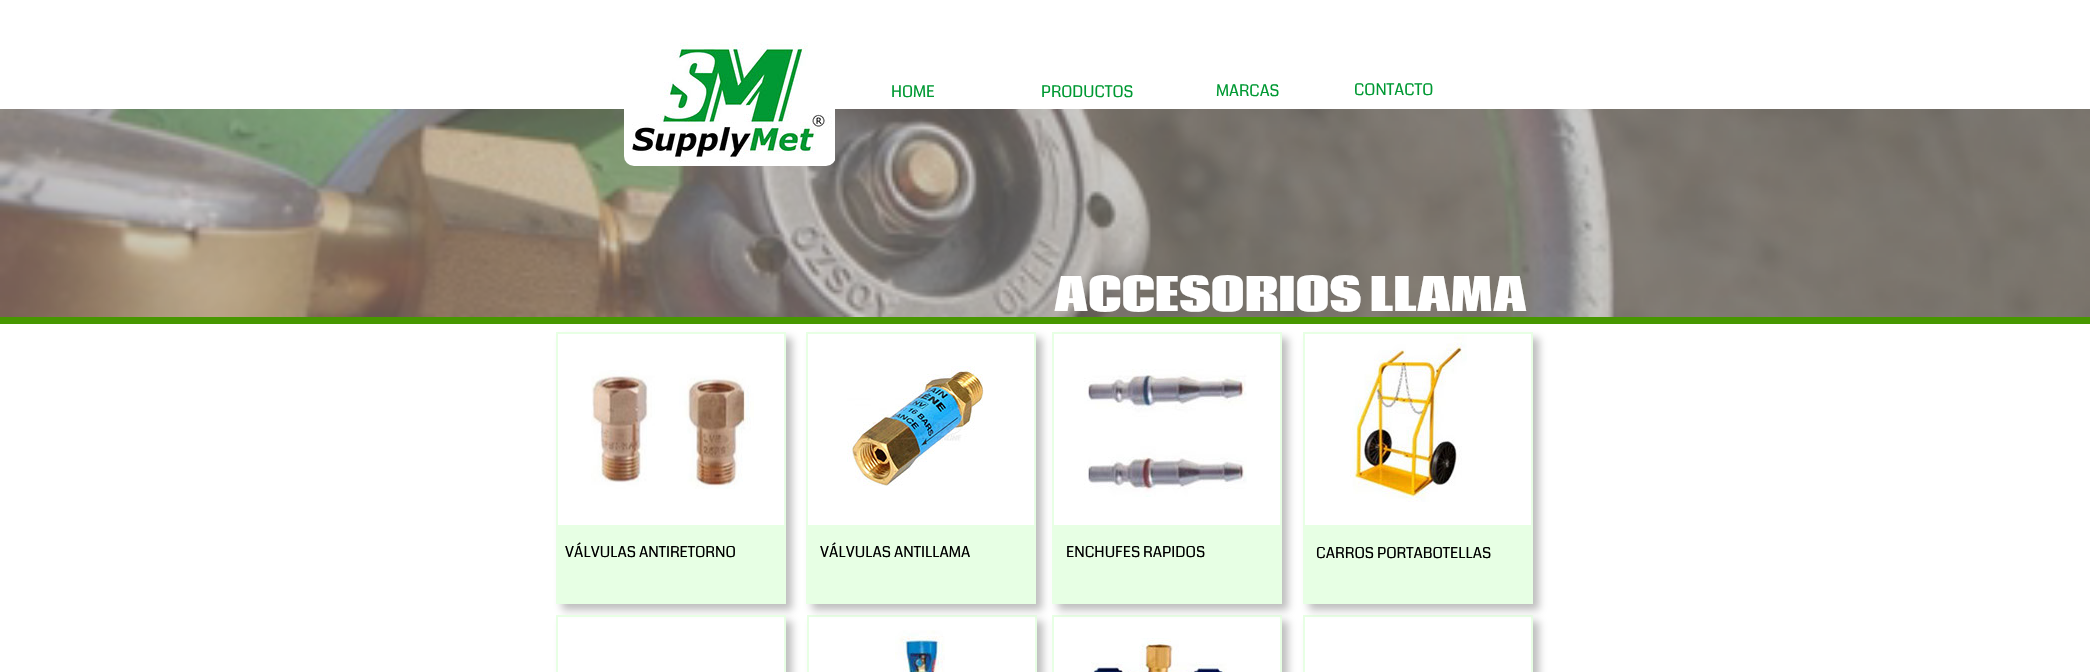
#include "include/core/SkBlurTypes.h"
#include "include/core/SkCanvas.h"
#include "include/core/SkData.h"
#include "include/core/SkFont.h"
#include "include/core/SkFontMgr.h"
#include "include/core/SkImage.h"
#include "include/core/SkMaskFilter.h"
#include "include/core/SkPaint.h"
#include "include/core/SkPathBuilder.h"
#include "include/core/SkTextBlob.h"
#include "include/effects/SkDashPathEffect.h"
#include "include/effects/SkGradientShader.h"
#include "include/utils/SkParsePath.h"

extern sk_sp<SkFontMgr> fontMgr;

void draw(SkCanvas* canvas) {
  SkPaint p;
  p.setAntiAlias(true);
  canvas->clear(SK_ColorWHITE);
  p.setColor(SkColorSetRGB(147, 147, 148));
  canvas->drawRect(SkRect::MakeLTRB(0, 109, 2090, 317), p);
  canvas->drawImageRect(SkImages::DeferredFromEncodedData(SkData::MakeFromFileName("images/2.png")), SkRect::MakeLTRB(0, 109, 2090, 317), SkSamplingOptions());
  canvas->drawImageRect(SkImages::DeferredFromEncodedData(SkData::MakeFromFileName("images/1.png")), SkRect::MakeLTRB(624, 42, 835, 166), SkSamplingOptions());
  p.setColor(SkColorSetRGB(71, 151, 0));
  canvas->drawRect(SkRect::MakeLTRB(0, 317, 2090, 324), p);
  canvas->save();
  canvas->clipPath(SkPathBuilder(SkPathFillType::kEvenOdd).moveTo(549, 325).lineTo(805, 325).lineTo(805, 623).lineTo(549, 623).close().moveTo(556, 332).lineTo(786, 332).lineTo(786, 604).lineTo(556, 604).close().detach(), true);
  p.setColor(SkColorSetARGB(128, 124, 124, 124));
  p.setMaskFilter(SkMaskFilter::MakeBlur(kNormal_SkBlurStyle, 4));
  canvas->drawRect(SkRect::MakeLTRB(562, 338, 792, 610), p);
  p.setMaskFilter(nullptr);
  canvas->restore();
  p.setStyle(SkPaint::kStroke_Style);
  p.setStrokeWidth(2);
  p.setColor(SkColorSetRGB(231, 255, 228));
  canvas->drawRect(SkRect::MakeLTRB(557, 333, 785, 603), p);
  canvas->drawImageRect(SkImages::DeferredFromEncodedData(SkData::MakeFromFileName("images/3.png")), SkRect::MakeLTRB(591, 370, 754, 489), SkSamplingOptions());
  p.setStyle(SkPaint::kFill_Style);
  canvas->drawRect(SkRect::MakeLTRB(558, 525, 784, 602), p);
  canvas->save();
  canvas->clipPath(SkPathBuilder(SkPathFillType::kEvenOdd).moveTo(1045, 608).lineTo(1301, 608).lineTo(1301, 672).lineTo(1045, 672).close().moveTo(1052, 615).lineTo(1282, 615).lineTo(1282, 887).lineTo(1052, 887).close().detach(), true);
  p.setColor(SkColorSetARGB(128, 124, 124, 124));
  p.setMaskFilter(SkMaskFilter::MakeBlur(kNormal_SkBlurStyle, 4));
  canvas->drawRect(SkRect::MakeLTRB(1058, 621, 1288, 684), p);
  p.setMaskFilter(nullptr);
  canvas->restore();
  p.setStyle(SkPaint::kStroke_Style);
  p.setColor(SkColorSetRGB(231, 255, 228));
  canvas->drawRect(SkRect::MakeLTRB(1053, 616, 1281, 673), p);
  canvas->save();
  canvas->clipPath(SkPathBuilder(SkPathFillType::kEvenOdd).moveTo(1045, 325).lineTo(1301, 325).lineTo(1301, 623).lineTo(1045, 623).close().moveTo(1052, 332).lineTo(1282, 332).lineTo(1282, 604).lineTo(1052, 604).close().detach(), true);
  p.setStyle(SkPaint::kFill_Style);
  p.setColor(SkColorSetARGB(128, 124, 124, 124));
  p.setMaskFilter(SkMaskFilter::MakeBlur(kNormal_SkBlurStyle, 4));
  canvas->drawRect(SkRect::MakeLTRB(1058, 338, 1288, 610), p);
  p.setMaskFilter(nullptr);
  canvas->restore();
  p.setStyle(SkPaint::kStroke_Style);
  p.setColor(SkColorSetRGB(231, 255, 228));
  canvas->drawRect(SkRect::MakeLTRB(1053, 333, 1281, 603), p);
  p.setStyle(SkPaint::kFill_Style);
  canvas->drawRect(SkRect::MakeLTRB(1054, 525, 1280, 602), p);
  canvas->save();
  canvas->clipPath(SkPathBuilder(SkPathFillType::kEvenOdd).moveTo(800, 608).lineTo(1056, 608).lineTo(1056, 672).lineTo(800, 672).close().moveTo(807, 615).lineTo(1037, 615).lineTo(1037, 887).lineTo(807, 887).close().detach(), true);
  p.setColor(SkColorSetARGB(128, 124, 124, 124));
  p.setMaskFilter(SkMaskFilter::MakeBlur(kNormal_SkBlurStyle, 4));
  canvas->drawRect(SkRect::MakeLTRB(813, 621, 1043, 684), p);
  p.setMaskFilter(nullptr);
  canvas->restore();
  p.setStyle(SkPaint::kStroke_Style);
  p.setColor(SkColorSetRGB(231, 255, 228));
  canvas->drawRect(SkRect::MakeLTRB(808, 616, 1036, 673), p);
  canvas->save();
  canvas->clipPath(SkPathBuilder(SkPathFillType::kEvenOdd).moveTo(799, 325).lineTo(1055, 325).lineTo(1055, 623).lineTo(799, 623).close().moveTo(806, 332).lineTo(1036, 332).lineTo(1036, 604).lineTo(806, 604).close().detach(), true);
  p.setStyle(SkPaint::kFill_Style);
  p.setColor(SkColorSetARGB(128, 124, 124, 124));
  p.setMaskFilter(SkMaskFilter::MakeBlur(kNormal_SkBlurStyle, 4));
  canvas->drawRect(SkRect::MakeLTRB(812, 338, 1042, 610), p);
  p.setMaskFilter(nullptr);
  canvas->restore();
  p.setStyle(SkPaint::kStroke_Style);
  p.setColor(SkColorSetRGB(231, 255, 228));
  canvas->drawRect(SkRect::MakeLTRB(807, 333, 1035, 603), p);
  canvas->drawImageRect(SkImages::DeferredFromEncodedData(SkData::MakeFromFileName("images/4.png")), SkRect::MakeLTRB(847, 366, 984, 486), SkSamplingOptions());
  p.setStyle(SkPaint::kFill_Style);
  canvas->drawRect(SkRect::MakeLTRB(808, 525, 1034, 602), p);
  canvas->drawImageRect(SkImages::DeferredFromEncodedData(SkData::MakeFromFileName("images/5.png")), SkRect::MakeLTRB(1084, 369, 1247, 497), SkSamplingOptions());
  canvas->save();
  canvas->clipPath(SkPathBuilder(SkPathFillType::kEvenOdd).moveTo(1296, 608).lineTo(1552, 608).lineTo(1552, 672).lineTo(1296, 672).close().moveTo(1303, 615).lineTo(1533, 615).lineTo(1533, 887).lineTo(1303, 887).close().detach(), true);
  p.setColor(SkColorSetARGB(128, 124, 124, 124));
  p.setMaskFilter(SkMaskFilter::MakeBlur(kNormal_SkBlurStyle, 4));
  canvas->drawRect(SkRect::MakeLTRB(1309, 621, 1539, 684), p);
  p.setMaskFilter(nullptr);
  canvas->restore();
  p.setStyle(SkPaint::kStroke_Style);
  p.setColor(SkColorSetRGB(231, 255, 228));
  canvas->drawRect(SkRect::MakeLTRB(1304, 616, 1532, 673), p);
  canvas->save();
  canvas->clipPath(SkPathBuilder(SkPathFillType::kEvenOdd).moveTo(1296, 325).lineTo(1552, 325).lineTo(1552, 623).lineTo(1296, 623).close().moveTo(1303, 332).lineTo(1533, 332).lineTo(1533, 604).lineTo(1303, 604).close().detach(), true);
  p.setStyle(SkPaint::kFill_Style);
  p.setColor(SkColorSetARGB(128, 124, 124, 124));
  p.setMaskFilter(SkMaskFilter::MakeBlur(kNormal_SkBlurStyle, 4));
  canvas->drawRect(SkRect::MakeLTRB(1309, 338, 1539, 610), p);
  p.setMaskFilter(nullptr);
  canvas->restore();
  p.setStyle(SkPaint::kStroke_Style);
  p.setColor(SkColorSetRGB(231, 255, 228));
  canvas->drawRect(SkRect::MakeLTRB(1304, 333, 1532, 603), p);
  canvas->drawImageRect(SkImages::DeferredFromEncodedData(SkData::MakeFromFileName("images/6.png")), SkRect::MakeLTRB(1350, 335, 1467, 502), SkSamplingOptions());
  p.setStyle(SkPaint::kFill_Style);
  canvas->drawRect(SkRect::MakeLTRB(1305, 525, 1531, 602), p);
  canvas->save();
  canvas->clipPath(SkPathBuilder(SkPathFillType::kEvenOdd).moveTo(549, 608).lineTo(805, 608).lineTo(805, 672).lineTo(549, 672).close().moveTo(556, 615).lineTo(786, 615).lineTo(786, 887).lineTo(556, 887).close().detach(), true);
  p.setColor(SkColorSetARGB(128, 124, 124, 124));
  p.setMaskFilter(SkMaskFilter::MakeBlur(kNormal_SkBlurStyle, 4));
  canvas->drawRect(SkRect::MakeLTRB(562, 621, 792, 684), p);
  p.setMaskFilter(nullptr);
  canvas->restore();
  p.setStyle(SkPaint::kStroke_Style);
  p.setColor(SkColorSetRGB(231, 255, 228));
  canvas->drawRect(SkRect::MakeLTRB(557, 616, 785, 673), p);
  canvas->drawImageRect(SkImages::DeferredFromEncodedData(SkData::MakeFromFileName("images/7.png")), SkRect::MakeLTRB(895, 630, 945, 672), SkSamplingOptions());
  canvas->drawImageRect(SkImages::DeferredFromEncodedData(SkData::MakeFromFileName("images/8.png")), SkRect::MakeLTRB(1091, 638, 1227, 672), SkSamplingOptions());
  SkFont font1(fontMgr->matchFamilyStyle("Coda", SkFontStyle::Normal()), 16);
  font1.setSubpixel(true);
  p.setStyle(SkPaint::kFill_Style);
  p.setColor(SkColorSetRGB(0, 153, 51));
  canvas->drawString("HOME", 891, 97, font1, p);
  canvas->drawString("PRODUCTOS", 1041, 97, font1, p);
  canvas->drawString("MARCAS", 1216, 96, font1, p);
  canvas->drawString("CONTACTO", 1354, 95, font1, p);
  SkFont font2(fontMgr->matchFamilyStyle("Coda", SkFontStyle(800, SkFontStyle::kNormal_Width, SkFontStyle::kUpright_Slant)), 45);
  font2.setSubpixel(true);
  p.setColor(SK_ColorWHITE);
  canvas->drawString("ACCESORIOS LLAMA", 1054, 311, font2, p);
  SkFont font3(fontMgr->matchFamilyStyle("Coda", SkFontStyle::Normal()), 15);
  font3.setSubpixel(true);
  p.setColor(SK_ColorBLACK);
  canvas->drawString("VÁLVULAS ANTIRETORNO", 565, 557, font3, p);
  canvas->drawString("VÁLVULAS ANTILLAMA", 820, 557, font3, p);
  canvas->drawString("ENCHUFES RAPIDOS", 1066, 557, font3, p);
  canvas->drawString("CARROS PORTABOTELLAS", 1316, 558, font3, p);
}
